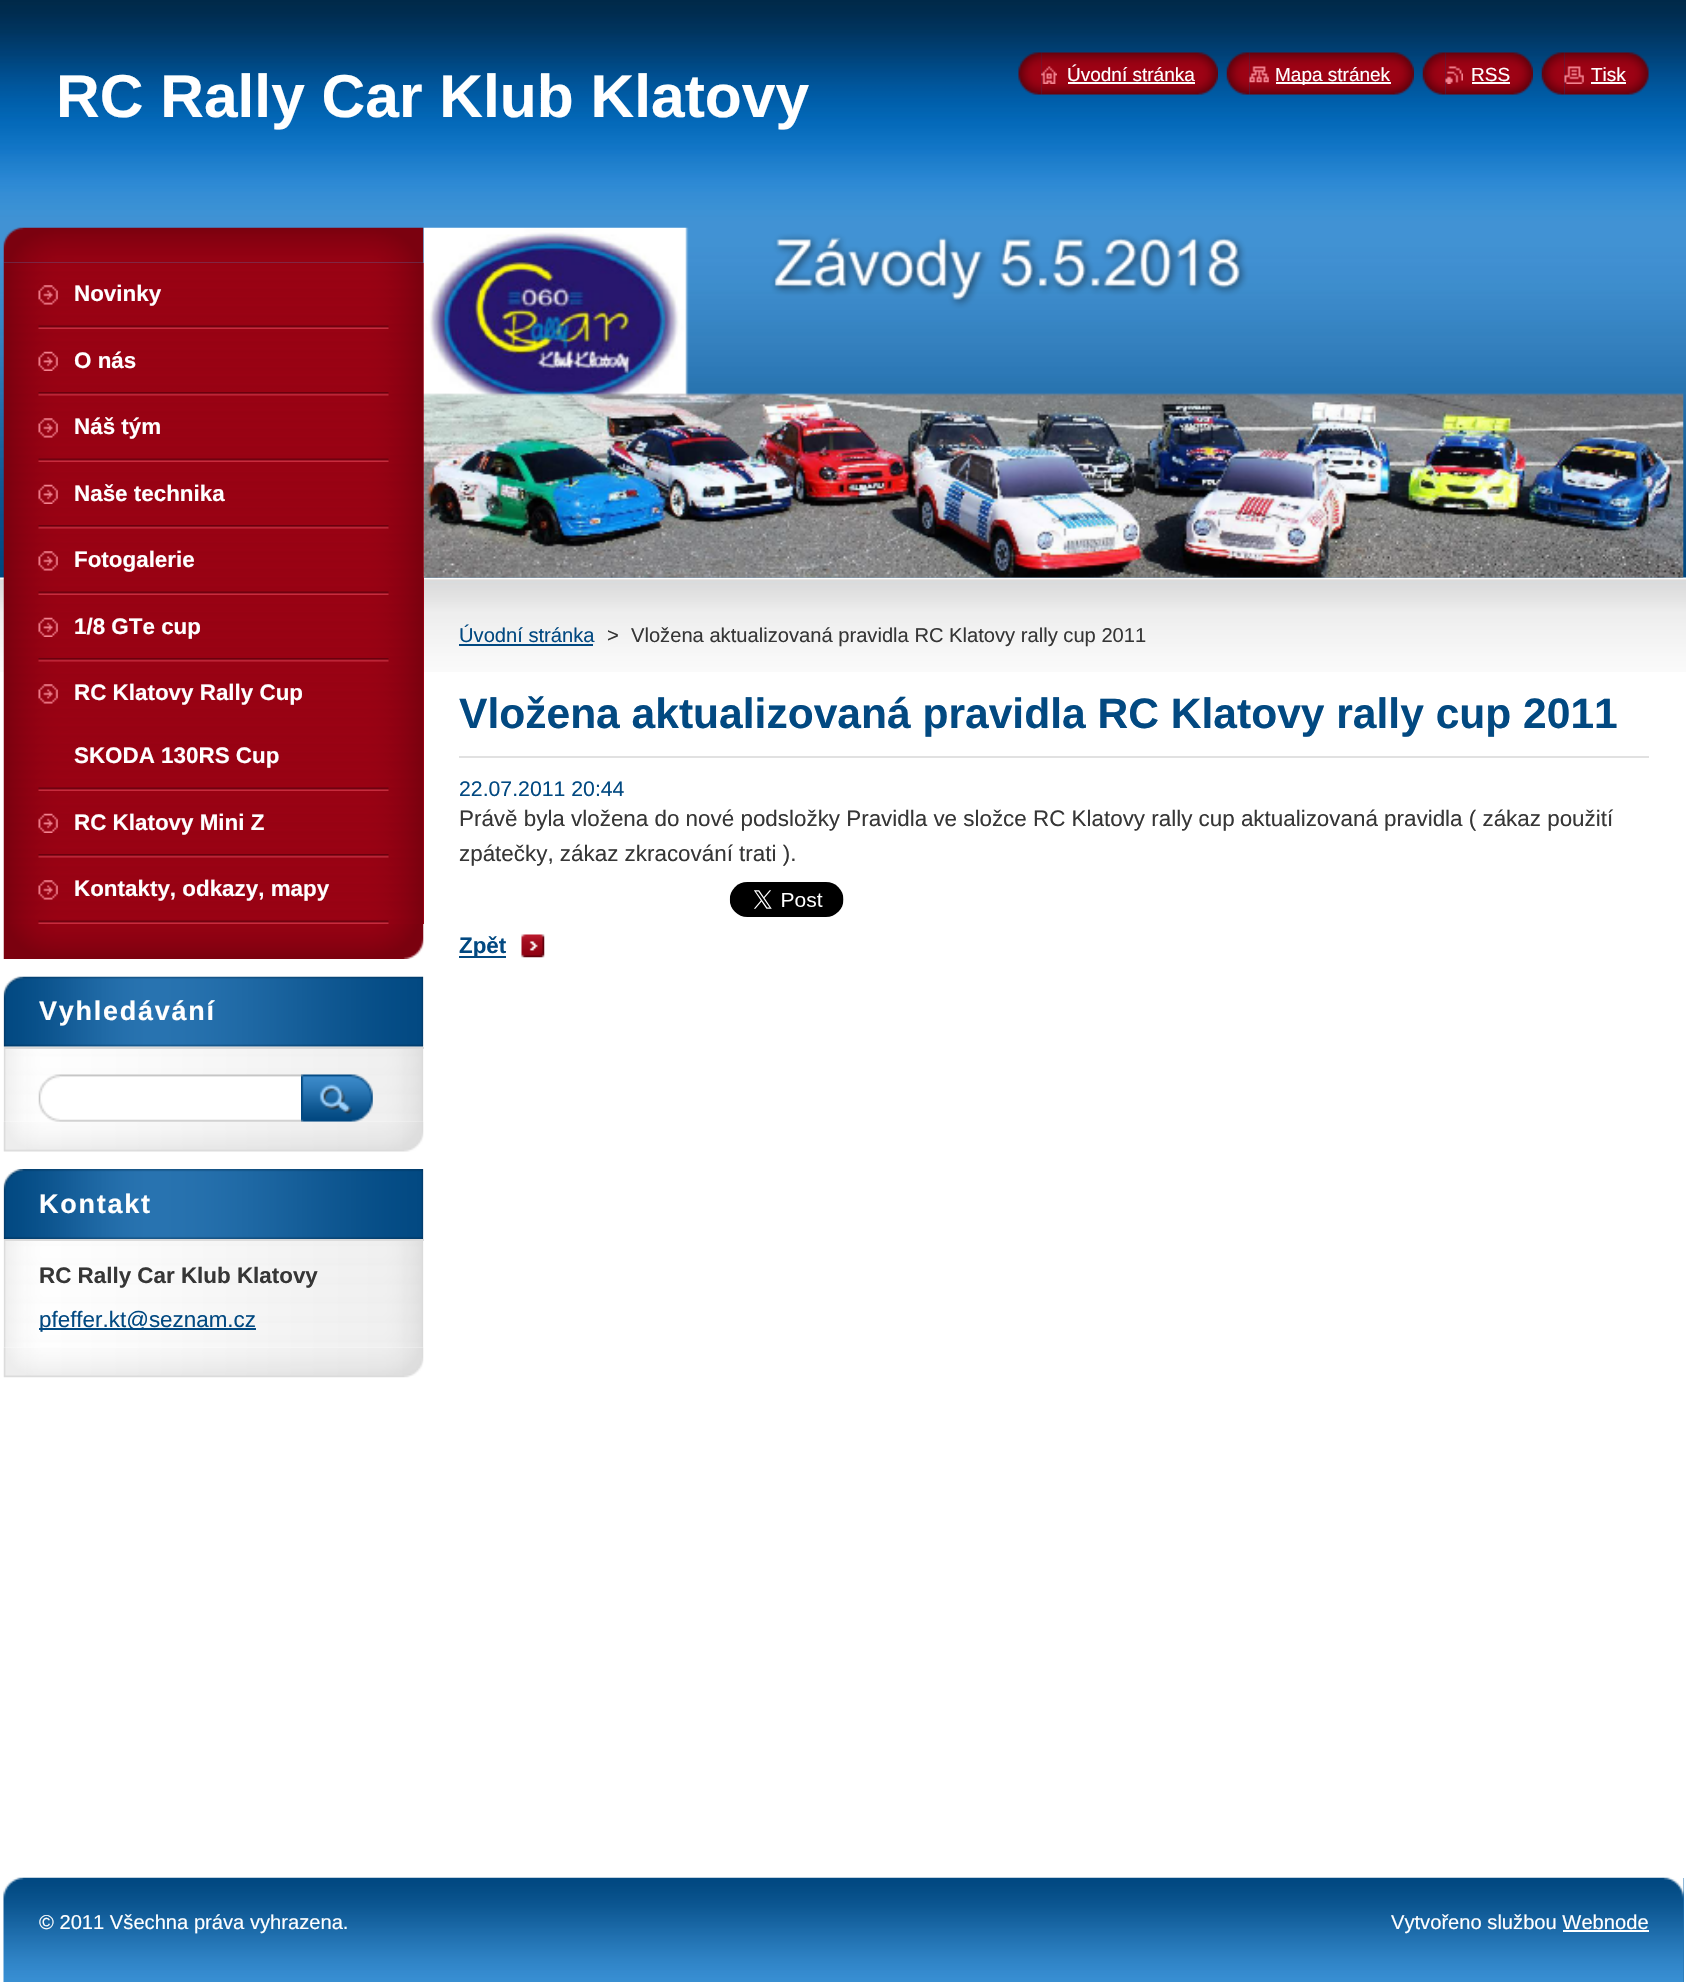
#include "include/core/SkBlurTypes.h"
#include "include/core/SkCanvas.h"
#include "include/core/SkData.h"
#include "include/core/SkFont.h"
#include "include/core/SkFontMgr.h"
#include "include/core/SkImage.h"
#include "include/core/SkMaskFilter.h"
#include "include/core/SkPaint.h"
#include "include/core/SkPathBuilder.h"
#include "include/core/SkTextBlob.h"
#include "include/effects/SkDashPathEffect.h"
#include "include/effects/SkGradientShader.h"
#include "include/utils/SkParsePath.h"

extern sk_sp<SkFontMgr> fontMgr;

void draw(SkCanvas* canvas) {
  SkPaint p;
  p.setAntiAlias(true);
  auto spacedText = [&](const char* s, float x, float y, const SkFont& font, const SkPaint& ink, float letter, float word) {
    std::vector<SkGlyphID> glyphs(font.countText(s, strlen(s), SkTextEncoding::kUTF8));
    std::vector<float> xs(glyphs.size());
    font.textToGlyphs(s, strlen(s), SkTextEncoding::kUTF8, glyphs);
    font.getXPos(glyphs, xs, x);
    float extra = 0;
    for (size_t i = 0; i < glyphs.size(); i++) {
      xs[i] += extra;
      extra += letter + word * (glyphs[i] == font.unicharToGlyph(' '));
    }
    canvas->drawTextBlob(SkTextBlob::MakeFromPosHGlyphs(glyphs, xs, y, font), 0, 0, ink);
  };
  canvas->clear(SK_ColorWHITE);
  canvas->drawImageRect(SkImages::DeferredFromEncodedData(SkData::MakeFromFileName("images/1.png")), SkRect::MakeLTRB(0, 0, 1686, 672), SkSamplingOptions());
  canvas->drawImageRect(SkImages::DeferredFromEncodedData(SkData::MakeFromFileName("images/2.png")), SkRect::MakeLTRB(1018, 52, 1042, 95), SkSamplingOptions());
  canvas->drawImageRect(SkImages::DeferredFromEncodedData(SkData::MakeFromFileName("images/3.png")), SkRect::MakeLTRB(1041, 52, 1218, 95), SkSamplingOptions());
  canvas->drawImageRect(SkImages::DeferredFromEncodedData(SkData::MakeFromFileName("images/4.png")), SkRect::MakeLTRB(1041, 66, 1057, 84), SkSamplingOptions());
  p.setColor(SK_ColorWHITE);
  canvas->drawRect(SkRect::MakeLTRB(1068, 82, 1195, 84), p);
  canvas->drawImageRect(SkImages::DeferredFromEncodedData(SkData::MakeFromFileName("images/5.png")), SkRect::MakeLTRB(1226, 52, 1250, 95), SkSamplingOptions());
  canvas->drawImageRect(SkImages::DeferredFromEncodedData(SkData::MakeFromFileName("images/6.png")), SkRect::MakeLTRB(1249, 52, 1414, 95), SkSamplingOptions());
  canvas->drawImageRect(SkImages::DeferredFromEncodedData(SkData::MakeFromFileName("images/7.png")), SkRect::MakeLTRB(1249, 66, 1269, 83), SkSamplingOptions());
  canvas->drawRect(SkRect::MakeLTRB(1276, 82, 1391, 84), p);
  canvas->drawImageRect(SkImages::DeferredFromEncodedData(SkData::MakeFromFileName("images/8.png")), SkRect::MakeLTRB(1422, 52, 1446, 95), SkSamplingOptions());
  canvas->drawImageRect(SkImages::DeferredFromEncodedData(SkData::MakeFromFileName("images/9.png")), SkRect::MakeLTRB(1445, 52, 1533, 95), SkSamplingOptions());
  canvas->drawImageRect(SkImages::DeferredFromEncodedData(SkData::MakeFromFileName("images/10.png")), SkRect::MakeLTRB(1445, 66, 1463, 84), SkSamplingOptions());
  canvas->drawRect(SkRect::MakeLTRB(1472, 82, 1510, 84), p);
  canvas->drawImageRect(SkImages::DeferredFromEncodedData(SkData::MakeFromFileName("images/11.png")), SkRect::MakeLTRB(1541, 52, 1565, 95), SkSamplingOptions());
  canvas->drawImageRect(SkImages::DeferredFromEncodedData(SkData::MakeFromFileName("images/12.png")), SkRect::MakeLTRB(1564, 52, 1649, 95), SkSamplingOptions());
  canvas->drawImageRect(SkImages::DeferredFromEncodedData(SkData::MakeFromFileName("images/13.png")), SkRect::MakeLTRB(1564, 66, 1584, 84), SkSamplingOptions());
  canvas->drawRect(SkRect::MakeLTRB(1591, 82, 1626, 84), p);
  canvas->drawImageRect(SkImages::DeferredFromEncodedData(SkData::MakeFromFileName("images/14.png")), SkRect::MakeLTRB(3, 227, 424, 263), SkSamplingOptions());
  canvas->drawImageRect(SkImages::DeferredFromEncodedData(SkData::MakeFromFileName("images/15.png")), SkRect::MakeLTRB(3, 924, 424, 959), SkSamplingOptions());
  p.setColor(SkColorSetRGB(157, 2, 20));
  canvas->drawRect(SkRect::MakeLTRB(423, 263, 424, 924), p);
  canvas->drawImageRect(SkImages::DeferredFromEncodedData(SkData::MakeFromFileName("images/16.png")), SkRect::MakeLTRB(3, 262, 424, 924), SkSamplingOptions());
  canvas->drawImageRect(SkImages::DeferredFromEncodedData(SkData::MakeFromFileName("images/17.png")), SkRect::MakeLTRB(38, 325, 389, 329), SkSamplingOptions());
  canvas->drawImageRect(SkImages::DeferredFromEncodedData(SkData::MakeFromFileName("images/18.png")), SkRect::MakeLTRB(38, 285, 58, 305), SkSamplingOptions());
  canvas->drawImageRect(SkImages::DeferredFromEncodedData(SkData::MakeFromFileName("images/19.png")), SkRect::MakeLTRB(38, 392, 389, 396), SkSamplingOptions());
  canvas->drawImageRect(SkImages::DeferredFromEncodedData(SkData::MakeFromFileName("images/20.png")), SkRect::MakeLTRB(38, 351, 58, 371), SkSamplingOptions());
  canvas->drawImageRect(SkImages::DeferredFromEncodedData(SkData::MakeFromFileName("images/21.png")), SkRect::MakeLTRB(38, 458, 389, 462), SkSamplingOptions());
  canvas->drawImageRect(SkImages::DeferredFromEncodedData(SkData::MakeFromFileName("images/22.png")), SkRect::MakeLTRB(38, 418, 58, 438), SkSamplingOptions());
  canvas->drawImageRect(SkImages::DeferredFromEncodedData(SkData::MakeFromFileName("images/23.png")), SkRect::MakeLTRB(38, 525, 389, 529), SkSamplingOptions());
  canvas->drawImageRect(SkImages::DeferredFromEncodedData(SkData::MakeFromFileName("images/24.png")), SkRect::MakeLTRB(38, 484, 58, 504), SkSamplingOptions());
  canvas->drawImageRect(SkImages::DeferredFromEncodedData(SkData::MakeFromFileName("images/25.png")), SkRect::MakeLTRB(38, 591, 389, 595), SkSamplingOptions());
  canvas->drawImageRect(SkImages::DeferredFromEncodedData(SkData::MakeFromFileName("images/26.png")), SkRect::MakeLTRB(38, 551, 58, 571), SkSamplingOptions());
  canvas->drawImageRect(SkImages::DeferredFromEncodedData(SkData::MakeFromFileName("images/27.png")), SkRect::MakeLTRB(38, 658, 389, 662), SkSamplingOptions());
  canvas->drawImageRect(SkImages::DeferredFromEncodedData(SkData::MakeFromFileName("images/28.png")), SkRect::MakeLTRB(38, 617, 58, 637), SkSamplingOptions());
  canvas->drawImageRect(SkImages::DeferredFromEncodedData(SkData::MakeFromFileName("images/29.png")), SkRect::MakeLTRB(38, 787, 389, 791), SkSamplingOptions());
  canvas->drawImageRect(SkImages::DeferredFromEncodedData(SkData::MakeFromFileName("images/30.png")), SkRect::MakeLTRB(38, 684, 58, 704), SkSamplingOptions());
  canvas->drawImageRect(SkImages::DeferredFromEncodedData(SkData::MakeFromFileName("images/31.png")), SkRect::MakeLTRB(38, 854, 389, 858), SkSamplingOptions());
  canvas->drawImageRect(SkImages::DeferredFromEncodedData(SkData::MakeFromFileName("images/32.png")), SkRect::MakeLTRB(38, 813, 58, 833), SkSamplingOptions());
  canvas->drawImageRect(SkImages::DeferredFromEncodedData(SkData::MakeFromFileName("images/17.png")), SkRect::MakeLTRB(38, 920, 389, 924), SkSamplingOptions());
  canvas->drawImageRect(SkImages::DeferredFromEncodedData(SkData::MakeFromFileName("images/18.png")), SkRect::MakeLTRB(38, 880, 58, 900), SkSamplingOptions());
  canvas->drawImageRect(SkImages::DeferredFromEncodedData(SkData::MakeFromFileName("images/33.png")), SkRect::MakeLTRB(3, 1121, 424, 1152), SkSamplingOptions());
  canvas->drawImageRect(SkImages::DeferredFromEncodedData(SkData::MakeFromFileName("images/35.png")), SkRect::MakeLTRB(3, 1046, 424, 1122), SkSamplingOptions());
  canvas->drawImageRect(SkImages::DeferredFromEncodedData(SkData::MakeFromFileName("images/34.png")), SkRect::MakeLTRB(3, 976, 424, 1047), SkSamplingOptions());
  p.setColor(SkColorSetRGB(219, 219, 219));
  canvas->drawRect(SkRect::MakeLTRB(4, 1047, 424, 1049), p);
  canvas->drawImageRect(SkImages::DeferredFromEncodedData(SkData::MakeFromFileName("images/36.png")), SkRect::MakeLTRB(38, 1074, 303, 1122), SkSamplingOptions());
  canvas->drawImageRect(SkImages::DeferredFromEncodedData(SkData::MakeFromFileName("images/37.png")), SkRect::MakeLTRB(301, 1074, 373, 1122), SkSamplingOptions());
  canvas->drawImageRect(SkImages::DeferredFromEncodedData(SkData::MakeFromFileName("images/38.png")), SkRect::MakeLTRB(3, 1347, 424, 1378), SkSamplingOptions());
  canvas->drawImageRect(SkImages::DeferredFromEncodedData(SkData::MakeFromFileName("images/39.png")), SkRect::MakeLTRB(3, 1169, 424, 1239), SkSamplingOptions());
  canvas->drawImageRect(SkImages::DeferredFromEncodedData(SkData::MakeFromFileName("images/40.png")), SkRect::MakeLTRB(3, 1239, 424, 1348), SkSamplingOptions());
  canvas->drawRect(SkRect::MakeLTRB(4, 1239, 424, 1241), p);
  p.setColor(SkColorSetRGB(2, 73, 129));
  canvas->drawRect(SkRect::MakeLTRB(39, 1328, 208, 1330), p);
  canvas->drawRect(SkRect::MakeLTRB(208, 1328, 256, 1330), p);
  canvas->drawImageRect(SkImages::DeferredFromEncodedData(SkData::MakeFromFileName("images/41.png")), SkRect::MakeLTRB(423, 227, 1684, 578), SkSamplingOptions());
  canvas->drawRect(SkRect::MakeLTRB(459, 644, 593, 646), p);
  p.setColor(SkColorSetRGB(225, 225, 225));
  canvas->drawRect(SkRect::MakeLTRB(459, 756, 1649, 758), p);
  canvas->drawImageRect(SkImages::DeferredFromEncodedData(SkData::MakeFromFileName("images/42.png")), SkRect::MakeLTRB(729, 882, 844, 917), SkSamplingOptions());
  canvas->drawImageRect(SkImages::DeferredFromEncodedData(SkData::MakeFromFileName("images/43.png")), SkRect::MakeLTRB(521, 934, 545, 958), SkSamplingOptions());
  p.setColor(SkColorSetRGB(2, 73, 129));
  canvas->drawRect(SkRect::MakeLTRB(459, 956, 506, 958), p);
  p.setColor(SkColorSetRGB(34, 114, 177));
  canvas->drawRect(SkRect::MakeLTRB(1683, 1878, 1684, 1982), p);
  canvas->drawImageRect(SkImages::DeferredFromEncodedData(SkData::MakeFromFileName("images/44.png")), SkRect::MakeLTRB(3, 1877, 1684, 1982), SkSamplingOptions());
  p.setColor(SK_ColorWHITE);
  canvas->drawRect(SkRect::MakeLTRB(1563, 1930, 1649, 1932), p);
  SkFont font1(fontMgr->matchFamilyStyle("Liberation Sans", SkFontStyle::Bold()), 60.5f);
  font1.setSubpixel(true);
  canvas->drawString("RC Rally Car Klub Klatovy", 56, 117, font1, p);
  SkFont font2(fontMgr->matchFamilyStyle("Liberation Sans", SkFontStyle::Normal()), 19);
  font2.setSubpixel(true);
  canvas->drawString("Úvodní stránka", 1067, 81, font2, p);
  canvas->drawString("Mapa stránek", 1275, 81, font2, p);
  canvas->drawString("RSS", 1471, 81, font2, p);
  canvas->drawString("Tisk", 1591, 81, font2, p);
  SkFont font3(fontMgr->matchFamilyStyle("Liberation Sans", SkFontStyle::Bold()), 22.4f);
  font3.setSubpixel(true);
  canvas->drawString("Novinky", 74, 301, font3, p);
  canvas->drawString("O nás", 74, 368, font3, p);
  canvas->drawString("Náš tým", 74, 434, font3, p);
  canvas->drawString("Naše technika", 74, 501, font3, p);
  canvas->drawString("Fotogalerie", 74, 567, font3, p);
  canvas->drawString("1/8 GTe cup", 74, 634, font3, p);
  canvas->drawString("RC Klatovy Rally Cup", 74, 700, font3, p);
  canvas->drawString("SKODA 130RS Cup", 74, 763, font3, p);
  canvas->drawString("RC Klatovy Mini Z", 74, 830, font3, p);
  canvas->drawString("Kontakty, odkazy, mapy", 74, 896, font3, p);
  SkFont font4(fontMgr->matchFamilyStyle("Liberation Sans", SkFontStyle::Bold()), 27);
  font4.setSubpixel(true);
  spacedText("Vyhledávání", 39, 1020, font4, p, 1.75f, 0);
  spacedText("Kontakt", 39, 1213, font4, p, 1.75f, 0);
  p.setColor(SkColorSetRGB(54, 54, 54));
  canvas->drawString("RC Rally Car Klub Klatovy", 39, 1283, font3, p);
  SkFont font5(fontMgr->matchFamilyStyle("Liberation Sans", SkFontStyle::Normal()), 22.4f);
  font5.setSubpixel(true);
  p.setColor(SkColorSetRGB(2, 73, 129));
  canvas->drawString("pfeffer.kt@seznam.cz", 39, 1327, font5, p);
  SkFont font6(fontMgr->matchFamilyStyle("Liberation Sans", SkFontStyle::Normal()), 20.15f);
  font6.setSubpixel(true);
  canvas->drawString("Úvodní stránka", 459, 642, font6, p);
  p.setColor(SkColorSetRGB(54, 54, 54));
  canvas->drawString(">", 607, 642, font6, p);
  canvas->drawString("Vložena aktualizovaná pravidla RC Klatovy rally cup 2011", 631, 642, font6, p);
  SkFont font7(fontMgr->matchFamilyStyle("Liberation Sans", SkFontStyle::Bold()), 42.55f);
  font7.setSubpixel(true);
  p.setColor(SkColorSetRGB(2, 73, 129));
  canvas->drawString("Vložena aktualizovaná pravidla RC Klatovy rally cup 2011", 459, 728, font7, p);
  SkFont font8(fontMgr->matchFamilyStyle("Liberation Sans", SkFontStyle::Normal()), 21.25f);
  font8.setSubpixel(true);
  canvas->drawString("22.07.2011 20:44", 459, 796, font8, p);
  p.setColor(SkColorSetRGB(54, 54, 54));
  canvas->drawString("Právě byla vložena do nové podsložky Pravidla ve složce RC Klatovy rally cup aktualizovaná pravidla ( zákaz použití", 459, 826, font5, p);
  canvas->drawString("zpátečky, zákaz zkracování trati ).", 459, 861, font5, p);
  p.setColor(SkColorSetRGB(2, 73, 129));
  canvas->drawString("Zpět", 459, 953, font3, p);
  p.setColor(SK_ColorWHITE);
  canvas->drawString("© 2011 Všechna práva vyhrazena.", 39, 1929, font6, p);
  canvas->drawString("Vytvořeno službou Webnode", 1391, 1929, font6, p);
}
